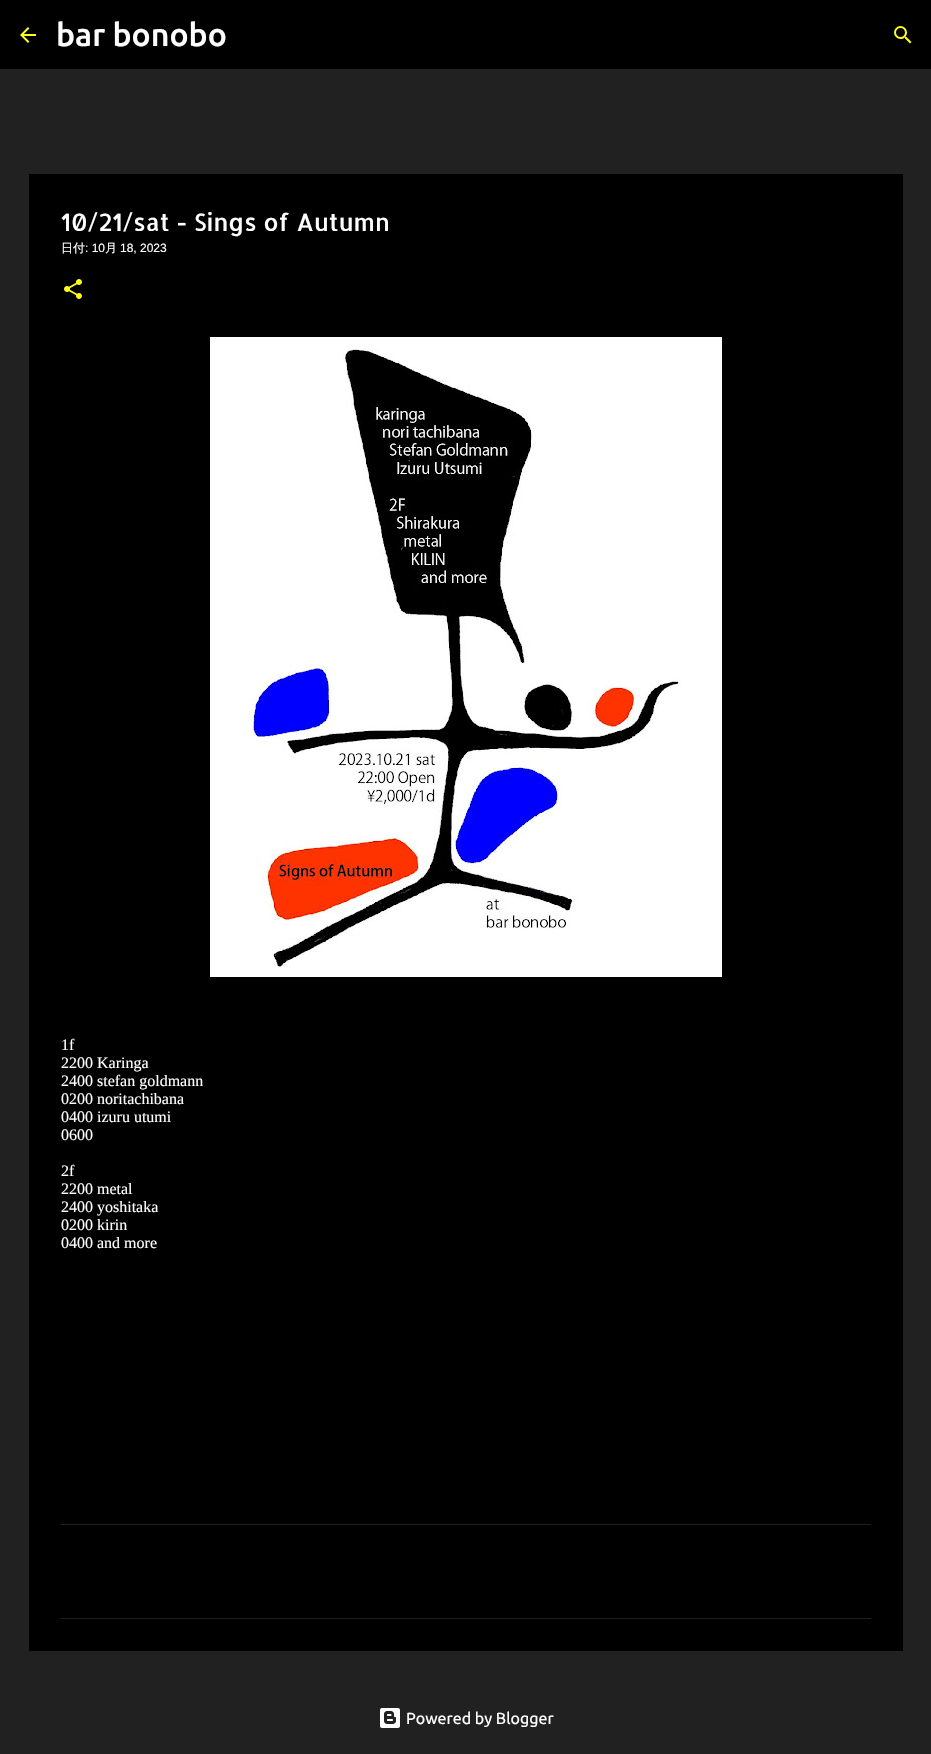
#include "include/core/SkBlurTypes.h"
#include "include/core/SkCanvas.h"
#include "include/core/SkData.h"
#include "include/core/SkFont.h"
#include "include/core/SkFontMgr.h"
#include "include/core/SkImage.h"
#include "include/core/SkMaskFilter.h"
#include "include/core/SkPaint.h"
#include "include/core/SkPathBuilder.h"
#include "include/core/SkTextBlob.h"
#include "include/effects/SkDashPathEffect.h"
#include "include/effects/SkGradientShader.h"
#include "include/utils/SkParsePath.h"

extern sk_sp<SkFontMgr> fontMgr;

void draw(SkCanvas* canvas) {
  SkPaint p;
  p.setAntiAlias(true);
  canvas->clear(SkColorSetRGB(33, 33, 33));
  p.setColor(SK_ColorBLACK);
  canvas->drawRect(SkRect::MakeLTRB(0, 0, 931, 69), p);
  canvas->drawImageRect(SkImages::DeferredFromEncodedData(SkData::MakeFromFileName("images/1.png")), SkRect::MakeLTRB(20, 27, 36, 43), SkSamplingOptions());
  canvas->drawImageRect(SkImages::DeferredFromEncodedData(SkData::MakeFromFileName("images/2.png")), SkRect::MakeLTRB(894, 26, 912, 44), SkSamplingOptions());
  canvas->drawRect(SkRect::MakeLTRB(29, 174, 903, 1651), p);
  p.setColor(SkColorSetRGB(31, 31, 31));
  canvas->drawRect(SkRect::MakeLTRB(61, 1524, 871, 1525), p);
  canvas->drawRect(SkRect::MakeLTRB(61, 1618, 871, 1619), p);
  canvas->drawImageRect(SkImages::DeferredFromEncodedData(SkData::MakeFromFileName("images/3.png")), SkRect::MakeLTRB(64, 279, 82, 299), SkSamplingOptions());
  canvas->drawImageRect(SkImages::DeferredFromEncodedData(SkData::MakeFromFileName("images/4.png")), SkRect::MakeLTRB(210, 337, 722, 977), SkSamplingOptions());
  canvas->drawImageRect(SkImages::DeferredFromEncodedData(SkData::MakeFromFileName("images/5.png")), SkRect::MakeLTRB(380, 1708, 400, 1728), SkSamplingOptions());
  SkFont font1(fontMgr->matchFamilyStyle("Ubuntu", SkFontStyle(500, SkFontStyle::kNormal_Width, SkFontStyle::kUpright_Slant)), 32);
  font1.setSubpixel(true);
  p.setColor(SK_ColorWHITE);
  canvas->drawString("bar bonobo", 56, 46, font1, p);
  SkFont font2(fontMgr->matchFamilyStyle("Allerta", SkFontStyle::Normal()), 24);
  font2.setSubpixel(true);
  canvas->drawString("10/21/sat - Sings of Autumn", 61, 231, font2, p);
  SkFont font3(fontMgr->matchFamilyStyle("WenQuanYi Zen Hei", SkFontStyle(500, SkFontStyle::kNormal_Width, SkFontStyle::kUpright_Slant)), 12);
  font3.setSubpixel(true);
  canvas->drawString("日付", 61, 252, font3, p);
  SkFont font4(fontMgr->matchFamilyStyle("Liberation Sans", SkFontStyle::Normal()), 12);
  font4.setSubpixel(true);
  canvas->drawString(": 10", 85, 252, font4, p);
  canvas->drawString("月", 105, 252, font3, p);
  canvas->drawString("18, 2023", 120, 252, font4, p);
  SkFont font5(fontMgr->matchFamilyStyle("Liberation Serif", SkFontStyle::Normal()), 16);
  font5.setSubpixel(true);
  canvas->drawString("1f", 61, 1050, font5, p);
  canvas->drawString("2200 Karinga", 61, 1068, font5, p);
  canvas->drawString("2400 stefan goldmann", 61, 1086, font5, p);
  canvas->drawString("0200 noritachibana", 61, 1104, font5, p);
  canvas->drawString("0400 izuru utumi", 61, 1122, font5, p);
  canvas->drawString("0600", 61, 1140, font5, p);
  canvas->drawString("2f", 61, 1176, font5, p);
  canvas->drawString("2200 metal", 61, 1194, font5, p);
  canvas->drawString("2400 yoshitaka", 61, 1212, font5, p);
  canvas->drawString("0200 kirin", 61, 1230, font5, p);
  canvas->drawString("0400 and more", 61, 1248, font5, p);
  SkFont font6(fontMgr->matchFamilyStyle("Ubuntu", SkFontStyle::Normal()), 16);
  font6.setSubpixel(true);
  canvas->drawString("Powered by Blogger", 406, 1724, font6, p);
}
